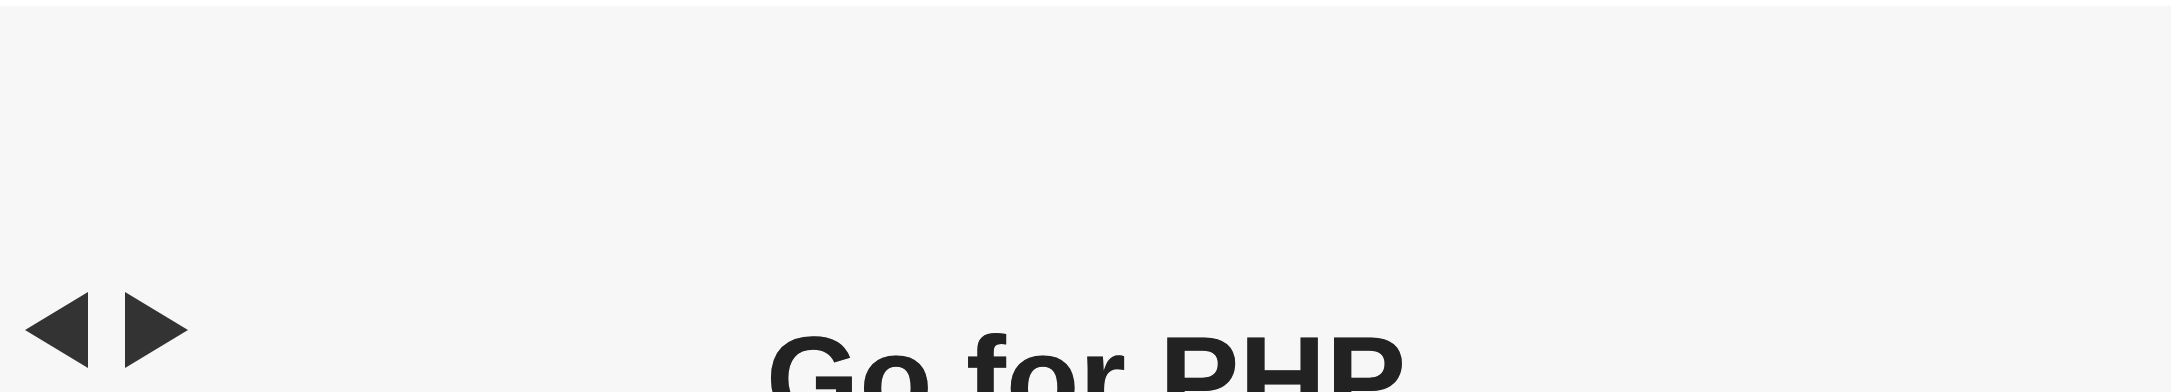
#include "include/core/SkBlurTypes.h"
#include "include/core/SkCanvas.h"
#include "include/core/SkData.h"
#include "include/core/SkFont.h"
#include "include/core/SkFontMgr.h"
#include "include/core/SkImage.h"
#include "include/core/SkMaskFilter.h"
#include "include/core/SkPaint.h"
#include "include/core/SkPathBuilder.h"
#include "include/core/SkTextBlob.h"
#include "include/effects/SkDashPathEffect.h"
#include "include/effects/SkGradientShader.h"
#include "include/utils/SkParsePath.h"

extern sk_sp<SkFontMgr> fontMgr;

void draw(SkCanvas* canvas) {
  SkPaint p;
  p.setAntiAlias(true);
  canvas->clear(SK_ColorWHITE);
  p.setColor(SkColorSetRGB(247, 247, 247));
  canvas->drawRect(SkRect::MakeLTRB(0, 6, 2171, 392), p);
  p.setColor(SkColorSetRGB(51, 51, 51));
  canvas->drawPath(SkPathBuilder().moveTo(88, 292).lineTo(88, 368).lineTo(25, 330).close().detach(), p);
  canvas->drawPath(SkPathBuilder().moveTo(125, 368).lineTo(125, 292).lineTo(188, 330).close().detach(), p);
  SkFont font1(fontMgr->matchFamilyStyle("Liberation Sans", SkFontStyle::Bold()), 120);
  font1.setSubpixel(true);
  p.setColor(SkColorSetRGB(34, 34, 34));
  canvas->drawString("Go for PHP", 766, 420, font1, p);
}
